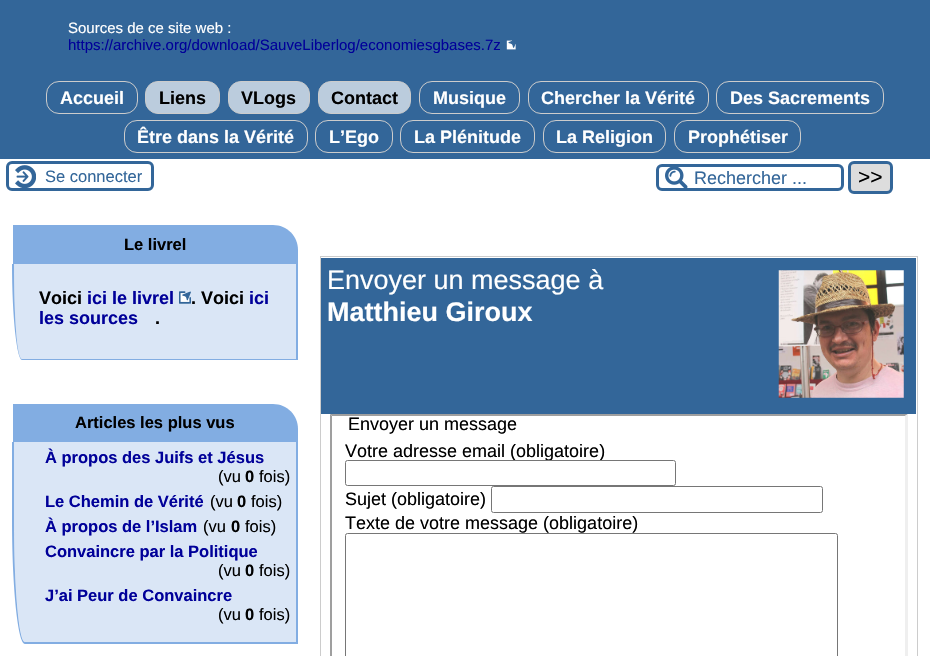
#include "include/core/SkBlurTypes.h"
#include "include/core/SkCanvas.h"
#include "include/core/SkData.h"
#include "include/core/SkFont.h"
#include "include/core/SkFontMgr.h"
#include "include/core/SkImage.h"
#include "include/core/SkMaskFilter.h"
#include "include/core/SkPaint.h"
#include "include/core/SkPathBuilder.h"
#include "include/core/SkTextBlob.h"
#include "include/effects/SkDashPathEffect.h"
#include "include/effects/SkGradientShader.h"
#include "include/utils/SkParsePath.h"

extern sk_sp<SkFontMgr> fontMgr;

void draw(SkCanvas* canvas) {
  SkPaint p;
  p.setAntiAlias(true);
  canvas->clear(SK_ColorWHITE);
  p.setColor(SkColorSetRGB(51, 102, 153));
  canvas->drawRect(SkRect::MakeLTRB(0, 0, 930, 159), p);
  canvas->drawImageRect(SkImages::DeferredFromEncodedData(SkData::MakeFromFileName("images/1.png")), SkRect::MakeLTRB(506, 40, 516, 50), SkSamplingOptions());
  p.setStyle(SkPaint::kStroke_Style);
  p.setStrokeWidth(1);
  p.setColor(SkColorSetRGB(204, 204, 204));
  canvas->drawRoundRect(SkRect::MakeLTRB(46.5f, 81.5f, 137.5f, 113.5f), 12.5f, 12.5f, p);
  p.setStyle(SkPaint::kFill_Style);
  p.setColor(SkColorSetRGB(187, 204, 221));
  canvas->drawRoundRect(SkRect::MakeLTRB(145.5f, 81.5f, 219.5f, 113.5f), 12.5f, 12.5f, p);
  p.setStyle(SkPaint::kStroke_Style);
  p.setColor(SkColorSetRGB(204, 204, 204));
  canvas->drawRoundRect(SkRect::MakeLTRB(145.5f, 81.5f, 219.5f, 113.5f), 12.5f, 12.5f, p);
  p.setStyle(SkPaint::kFill_Style);
  p.setColor(SkColorSetRGB(187, 204, 221));
  canvas->drawRoundRect(SkRect::MakeLTRB(228.5f, 81.5f, 309.5f, 113.5f), 12.5f, 12.5f, p);
  p.setStyle(SkPaint::kStroke_Style);
  p.setColor(SkColorSetRGB(204, 204, 204));
  canvas->drawRoundRect(SkRect::MakeLTRB(228.5f, 81.5f, 309.5f, 113.5f), 12.5f, 12.5f, p);
  p.setStyle(SkPaint::kFill_Style);
  p.setColor(SkColorSetRGB(187, 204, 221));
  canvas->drawRoundRect(SkRect::MakeLTRB(318.5f, 81.5f, 410.5f, 113.5f), 12.5f, 12.5f, p);
  p.setStyle(SkPaint::kStroke_Style);
  p.setColor(SkColorSetRGB(204, 204, 204));
  canvas->drawRoundRect(SkRect::MakeLTRB(318.5f, 81.5f, 410.5f, 113.5f), 12.5f, 12.5f, p);
  canvas->drawRoundRect(SkRect::MakeLTRB(419.5f, 81.5f, 519.5f, 113.5f), 12.5f, 12.5f, p);
  canvas->drawRoundRect(SkRect::MakeLTRB(528.5f, 81.5f, 708.5f, 113.5f), 12.5f, 12.5f, p);
  canvas->drawRoundRect(SkRect::MakeLTRB(716.5f, 81.5f, 883.5f, 113.5f), 12.5f, 12.5f, p);
  canvas->drawRoundRect(SkRect::MakeLTRB(124.5f, 120.5f, 307.5f, 152.5f), 12.5f, 12.5f, p);
  canvas->drawRoundRect(SkRect::MakeLTRB(315.5f, 120.5f, 392.5f, 152.5f), 12.5f, 12.5f, p);
  canvas->drawRoundRect(SkRect::MakeLTRB(400.5f, 120.5f, 534.5f, 152.5f), 12.5f, 12.5f, p);
  canvas->drawRoundRect(SkRect::MakeLTRB(543.5f, 120.5f, 665.5f, 152.5f), 12.5f, 12.5f, p);
  canvas->drawRoundRect(SkRect::MakeLTRB(674.5f, 120.5f, 800.5f, 152.5f), 12.5f, 12.5f, p);
  canvas->drawImageRect(SkImages::DeferredFromEncodedData(SkData::MakeFromFileName("images/2.png")), SkRect::MakeLTRB(15, 165, 36, 188), SkSamplingOptions());
  p.setStrokeWidth(3);
  p.setColor(SkColorSetRGB(51, 102, 153));
  canvas->drawRoundRect(SkRect::MakeLTRB(7.5f, 162.5f, 152.5f, 189.5f), 4.5f, 4.5f, p);
  canvas->drawImageRect(SkImages::DeferredFromEncodedData(SkData::MakeFromFileName("images/3.png")), SkRect::MakeLTRB(665, 167, 688, 188), SkSamplingOptions());
  canvas->drawRoundRect(SkRect::MakeLTRB(657.5f, 165.5f, 842.5f, 189.5f), 4.5f, 4.5f, p);
  p.setStyle(SkPaint::kFill_Style);
  p.setColor(SkColorSetRGB(221, 221, 221));
  canvas->drawRoundRect(SkRect::MakeLTRB(849.5f, 162.5f, 891.5f, 192.5f), 4.5f, 4.5f, p);
  p.setStyle(SkPaint::kStroke_Style);
  p.setColor(SkColorSetRGB(51, 102, 153));
  canvas->drawRoundRect(SkRect::MakeLTRB(849.5f, 162.5f, 891.5f, 192.5f), 4.5f, 4.5f, p);
  p.setStyle(SkPaint::kFill_Style);
  p.setColor(SkColorSetRGB(130, 173, 226));
  canvas->drawPath(SkPathBuilder().moveTo(13, 225).lineTo(273, 225).cubicTo(287, 225, 298, 236, 298, 250).lineTo(298, 264).lineTo(13, 264).close().detach(), p);
  p.setColor(SkColorSetRGB(218, 230, 246));
  canvas->drawPath(SkPathBuilder().moveTo(14, 264).lineTo(296, 264).lineTo(296, 359).lineTo(22, 359).cubicTo(17, 359, 14, 316, 14, 264).close().detach(), p);
  p.setColor(SkColorSetRGB(130, 173, 226));
  canvas->drawPath(SkPathBuilder(SkPathFillType::kEvenOdd).moveTo(12, 264).lineTo(298, 264).lineTo(298, 360).lineTo(22, 360).cubicTo(17, 360, 12, 317, 12, 264).close().moveTo(14, 264).lineTo(296, 264).lineTo(296, 359).lineTo(22, 359).cubicTo(17, 359, 14, 316, 14, 264).close().detach(), p);
  canvas->drawImageRect(SkImages::DeferredFromEncodedData(SkData::MakeFromFileName("images/4.png")), SkRect::MakeLTRB(179, 291, 191, 304), SkSamplingOptions());
  p.setStyle(SkPaint::kStroke_Style);
  p.setStrokeWidth(1);
  p.setColor(SkColorSetRGB(204, 204, 204));
  canvas->drawRect(SkRect::MakeLTRB(320.5f, 256.5f, 917.5f, 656.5f), p);
  p.setStyle(SkPaint::kFill_Style);
  p.setColor(SkColorSetRGB(51, 102, 153));
  canvas->drawRect(SkRect::MakeLTRB(321, 258, 916, 414), p);
  canvas->drawImageRect(SkImages::DeferredFromEncodedData(SkData::MakeFromFileName("images/5.png")), SkRect::MakeLTRB(778, 270, 904, 398), SkSamplingOptions());
  p.setColor(SkColorSetRGB(159, 159, 159));
  canvas->drawPath(SkPathBuilder().moveTo(330, 414).lineTo(908, 414).lineTo(905, 416).lineTo(332, 416).close().detach(), p);
  p.setColor(SkColorSetRGB(239, 239, 239));
  canvas->drawPath(SkPathBuilder().moveTo(908, 414).lineTo(908, 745).lineTo(905, 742).lineTo(905, 416).close().detach(), p);
  p.setColor(SkColorSetRGB(159, 159, 159));
  canvas->drawPath(SkPathBuilder().moveTo(330, 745).lineTo(330, 414).lineTo(332, 416).lineTo(332, 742).close().detach(), p);
  p.setStyle(SkPaint::kStroke_Style);
  p.setColor(SkColorSetRGB(118, 118, 118));
  canvas->drawRoundRect(SkRect::MakeLTRB(491.5f, 486.5f, 822.5f, 512.5f), 2, 2, p);
  canvas->drawRoundRect(SkRect::MakeLTRB(345.5f, 533.5f, 837.5f, 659.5f), 2, 2, p);
  p.setStyle(SkPaint::kFill_Style);
  p.setColor(SkColorSetRGB(130, 173, 226));
  canvas->drawPath(SkPathBuilder().moveTo(13, 404).lineTo(273, 404).cubicTo(287, 404, 298, 415, 298, 429).lineTo(298, 443).lineTo(13, 443).close().detach(), p);
  p.setColor(SkColorSetRGB(218, 230, 246));
  canvas->drawPath(SkPathBuilder().moveTo(14, 442).lineTo(296, 442).lineTo(296, 642).lineTo(25, 642).cubicTo(19, 642, 14, 587, 14, 519).close().detach(), p);
  p.setColor(SkColorSetRGB(130, 173, 226));
  canvas->drawPath(SkPathBuilder(SkPathFillType::kEvenOdd).moveTo(12, 442).lineTo(298, 442).lineTo(298, 644).lineTo(25, 644).cubicTo(18, 644, 12, 588, 12, 519).close().moveTo(14, 442).lineTo(296, 442).lineTo(296, 642).lineTo(25, 642).cubicTo(19, 642, 14, 587, 14, 519).close().detach(), p);
  SkFont font1(fontMgr->matchFamilyStyle("Liberation Sans", SkFontStyle::Normal()), 15);
  font1.setSubpixel(true);
  p.setColor(SK_ColorWHITE);
  canvas->drawString("Sources de ce site web :", 68, 33, font1, p);
  p.setColor(SkColorSetRGB(0, 0, 153));
  canvas->drawString("https://archive.org/download/SauveLiberlog/economiesgbases.7z", 68, 50, font1, p);
  SkFont font2(fontMgr->matchFamilyStyle("Liberation Sans", SkFontStyle::Bold()), 18);
  font2.setSubpixel(true);
  p.setColor(SK_ColorWHITE);
  canvas->drawString("Accueil", 60, 104, font2, p);
  p.setColor(SK_ColorBLACK);
  canvas->drawString("Liens", 159, 104, font2, p);
  canvas->drawString("VLogs", 241, 104, font2, p);
  canvas->drawString("Contact", 331, 104, font2, p);
  p.setColor(SK_ColorWHITE);
  canvas->drawString("Musique", 433, 104, font2, p);
  canvas->drawString("Chercher la Vérité", 541, 104, font2, p);
  canvas->drawString("Des Sacrements", 730, 104, font2, p);
  canvas->drawString("Être dans la Vérité", 137, 143, font2, p);
  canvas->drawString("L’Ego", 329, 143, font2, p);
  canvas->drawString("La Plénitude", 414, 143, font2, p);
  canvas->drawString("La Religion", 556, 143, font2, p);
  canvas->drawString("Prophétiser", 688, 143, font2, p);
  SkFont font3(fontMgr->matchFamilyStyle("Liberation Sans", SkFontStyle::Normal()), 16.5f);
  font3.setSubpixel(true);
  p.setColor(SkColorSetRGB(51, 102, 153));
  canvas->drawString("Se connecter", 45, 182, font3, p);
  SkFont font4(fontMgr->matchFamilyStyle("Liberation Sans", SkFontStyle::Normal()), 18);
  font4.setSubpixel(true);
  canvas->drawString("Rechercher ...", 694, 184, font4, p);
  SkFont font5(fontMgr->matchFamilyStyle("Liberation Sans", SkFontStyle::Normal()), 21);
  font5.setSubpixel(true);
  p.setColor(SK_ColorBLACK);
  canvas->drawString(">>", 858, 184, font5, p);
  SkFont font6(fontMgr->matchFamilyStyle("Liberation Sans", SkFontStyle::Bold()), 16.5f);
  font6.setSubpixel(true);
  canvas->drawString("Le livrel", 124, 250, font6, p);
  canvas->drawString("Voici", 39, 304, font2, p);
  p.setColor(SkColorSetRGB(0, 0, 153));
  canvas->drawString("ici le livrel", 87, 304, font2, p);
  p.setColor(SK_ColorBLACK);
  canvas->drawString(". Voici", 191, 304, font2, p);
  p.setColor(SkColorSetRGB(0, 0, 153));
  canvas->drawString("ici", 249, 304, font2, p);
  canvas->drawString("les sources", 39, 324, font2, p);
  p.setColor(SK_ColorBLACK);
  canvas->drawString(".", 155, 324, font2, p);
  SkFont font7(fontMgr->matchFamilyStyle("Liberation Sans", SkFontStyle::Normal()), 27);
  font7.setSubpixel(true);
  p.setColor(SK_ColorWHITE);
  canvas->drawString("Envoyer un message à", 327, 289, font7, p);
  SkFont font8(fontMgr->matchFamilyStyle("Liberation Sans", SkFontStyle::Bold()), 27);
  font8.setSubpixel(true);
  canvas->drawString("Matthieu Giroux", 327, 321, font8, p);
  p.setColor(SK_ColorBLACK);
  canvas->drawString("Envoyer un message", 348, 430, font4, p);
  canvas->drawString("Votre adresse email (obligatoire)", 345, 457, font4, p);
  p.setColor(SK_ColorWHITE);
  canvas->drawRoundRect(SkRect::MakeLTRB(345.5f, 460.5f, 675.5f, 485.5f), 2, 2, p);
  p.setStyle(SkPaint::kStroke_Style);
  p.setColor(SkColorSetRGB(118, 118, 118));
  canvas->drawRoundRect(SkRect::MakeLTRB(345.5f, 460.5f, 675.5f, 485.5f), 2, 2, p);
  p.setStyle(SkPaint::kFill_Style);
  p.setColor(SK_ColorBLACK);
  canvas->drawString("Sujet (obligatoire)", 345, 505, font4, p);
  canvas->drawString("Texte de votre message (obligatoire)", 345, 529, font4, p);
  canvas->drawString("Articles les plus vus", 75, 428, font6, p);
  p.setColor(SkColorSetRGB(0, 0, 153));
  canvas->drawString("À propos des Juifs et Jésus", 45, 463, font6, p);
  p.setColor(SK_ColorBLACK);
  canvas->drawString("(vu", 218, 482, font3, p);
  canvas->drawString("0", 245, 482, font6, p);
  canvas->drawString("fois)", 259, 482, font3, p);
  p.setColor(SkColorSetRGB(0, 0, 153));
  canvas->drawString("Le Chemin de Vérité", 45, 507, font6, p);
  p.setColor(SK_ColorBLACK);
  canvas->drawString("(vu", 210, 507, font3, p);
  canvas->drawString("0", 237, 507, font6, p);
  canvas->drawString("fois)", 251, 507, font3, p);
  p.setColor(SkColorSetRGB(0, 0, 153));
  canvas->drawString("À propos de l’Islam", 45, 532, font6, p);
  p.setColor(SK_ColorBLACK);
  canvas->drawString("(vu", 203, 532, font3, p);
  canvas->drawString("0", 231, 532, font6, p);
  canvas->drawString("fois)", 245, 532, font3, p);
  p.setColor(SkColorSetRGB(0, 0, 153));
  canvas->drawString("Convaincre par la Politique", 45, 557, font6, p);
  p.setColor(SK_ColorBLACK);
  canvas->drawString("(vu", 218, 576, font3, p);
  canvas->drawString("0", 245, 576, font6, p);
  canvas->drawString("fois)", 259, 576, font3, p);
  p.setColor(SkColorSetRGB(0, 0, 153));
  canvas->drawString("J’ai Peur de Convaincre", 45, 601, font6, p);
  p.setColor(SK_ColorBLACK);
  canvas->drawString("(vu", 218, 620, font3, p);
  canvas->drawString("0", 245, 620, font6, p);
  canvas->drawString("fois)", 259, 620, font3, p);
}
